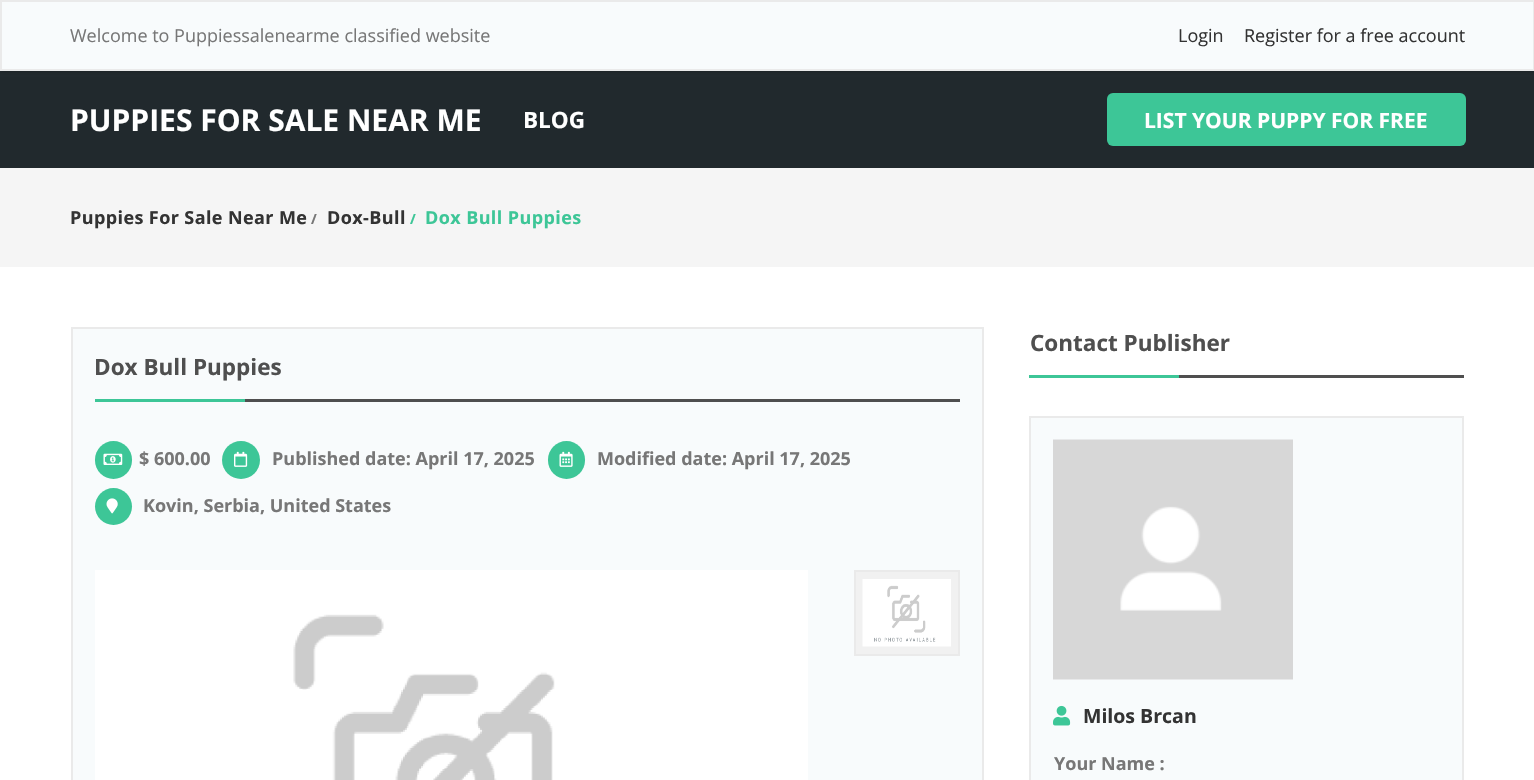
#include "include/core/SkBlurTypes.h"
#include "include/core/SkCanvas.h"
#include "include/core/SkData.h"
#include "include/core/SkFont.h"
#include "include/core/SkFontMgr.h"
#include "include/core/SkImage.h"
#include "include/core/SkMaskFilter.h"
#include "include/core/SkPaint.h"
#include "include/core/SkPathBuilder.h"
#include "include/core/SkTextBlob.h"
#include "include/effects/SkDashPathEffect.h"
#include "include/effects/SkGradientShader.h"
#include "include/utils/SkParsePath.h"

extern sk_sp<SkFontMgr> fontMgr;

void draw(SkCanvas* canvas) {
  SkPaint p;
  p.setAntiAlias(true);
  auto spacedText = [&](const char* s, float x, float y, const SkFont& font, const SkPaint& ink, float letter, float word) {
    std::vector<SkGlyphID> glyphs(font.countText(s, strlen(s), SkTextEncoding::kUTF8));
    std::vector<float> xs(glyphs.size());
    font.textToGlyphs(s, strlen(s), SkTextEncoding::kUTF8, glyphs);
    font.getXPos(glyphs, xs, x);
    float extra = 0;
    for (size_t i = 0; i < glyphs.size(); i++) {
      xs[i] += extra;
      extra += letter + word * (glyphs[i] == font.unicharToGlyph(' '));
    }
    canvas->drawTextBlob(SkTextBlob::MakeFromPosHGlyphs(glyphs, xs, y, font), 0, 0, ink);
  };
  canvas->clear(SK_ColorWHITE);
  p.setColor(SkColorSetRGB(33, 41, 45));
  canvas->drawRect(SkRect::MakeLTRB(0, 71, 1534, 168), p);
  p.setColor(SkColorSetARGB(77, 4, 4, 4));
  p.setMaskFilter(SkMaskFilter::MakeBlur(kNormal_SkBlurStyle, 2));
  canvas->drawRect(SkRect::MakeLTRB(0, 0, 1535, 71), p);
  p.setMaskFilter(nullptr);
  p.setColor(SkColorSetRGB(248, 251, 252));
  canvas->drawRect(SkRect::MakeLTRB(1, 1, 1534, 70), p);
  p.setStyle(SkPaint::kStroke_Style);
  p.setStrokeWidth(2);
  p.setColor(SkColorSetRGB(234, 234, 234));
  canvas->drawRect(SkRect::MakeLTRB(1, 1, 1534, 70), p);
  p.setStyle(SkPaint::kFill_Style);
  p.setColor(SkColorSetRGB(61, 198, 151));
  canvas->drawRoundRect(SkRect::MakeLTRB(1107, 93, 1466, 146), 6, 6, p);
  p.setColor(SkColorSetRGB(245, 245, 245));
  canvas->drawRect(SkRect::MakeLTRB(0, 168, 1534, 267), p);
  p.setColor(SkColorSetRGB(248, 251, 252));
  canvas->drawRect(SkRect::MakeLTRB(72, 328, 983, 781), p);
  p.setStyle(SkPaint::kStroke_Style);
  p.setColor(SkColorSetRGB(234, 234, 234));
  canvas->drawRect(SkRect::MakeLTRB(72, 328, 983, 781), p);
  p.setStyle(SkPaint::kFill_Style);
  p.setColor(SkColorSetRGB(79, 79, 79));
  canvas->drawRect(SkRect::MakeLTRB(245, 399, 960, 402), p);
  p.setColor(SkColorSetRGB(61, 198, 151));
  canvas->drawRect(SkRect::MakeLTRB(95, 399, 245, 402), p);
  canvas->drawRoundRect(SkRect::MakeLTRB(95, 441, 132, 479), 18.5f, 18.5f, p);
  canvas->drawImageRect(SkImages::DeferredFromEncodedData(SkData::MakeFromFileName("images/1.png")), SkRect::MakeLTRB(103, 453, 123, 465), SkSamplingOptions());
  canvas->drawCircle(241, 460, 19, p);
  canvas->drawImageRect(SkImages::DeferredFromEncodedData(SkData::MakeFromFileName("images/2.png")), SkRect::MakeLTRB(234, 451, 248, 467), SkSamplingOptions());
  canvas->drawRoundRect(SkRect::MakeLTRB(548, 441, 585, 479), 18.5f, 18.5f, p);
  canvas->drawImageRect(SkImages::DeferredFromEncodedData(SkData::MakeFromFileName("images/3.png")), SkRect::MakeLTRB(559, 451, 573, 467), SkSamplingOptions());
  canvas->drawCircle(113.5f, 506.5f, 18.5f, p);
  canvas->drawImageRect(SkImages::DeferredFromEncodedData(SkData::MakeFromFileName("images/4.png")), SkRect::MakeLTRB(106, 498, 118, 514), SkSamplingOptions());
  canvas->drawImageRect(SkImages::DeferredFromEncodedData(SkData::MakeFromFileName("images/5.png")), SkRect::MakeLTRB(95, 570, 808, 780), SkSamplingOptions());
  p.setColor(SkColorSetRGB(241, 241, 241));
  canvas->drawRect(SkRect::MakeLTRB(855, 571, 959, 655), p);
  p.setStyle(SkPaint::kStroke_Style);
  p.setColor(SkColorSetRGB(234, 234, 234));
  canvas->drawRect(SkRect::MakeLTRB(855, 571, 959, 655), p);
  canvas->drawImageRect(SkImages::DeferredFromEncodedData(SkData::MakeFromFileName("images/6.png")), SkRect::MakeLTRB(862, 579, 951, 647), SkSamplingOptions());
  p.setStyle(SkPaint::kFill_Style);
  p.setColor(SkColorSetRGB(79, 79, 79));
  canvas->drawRect(SkRect::MakeLTRB(1179, 375, 1464, 378), p);
  p.setColor(SkColorSetRGB(61, 198, 151));
  canvas->drawRect(SkRect::MakeLTRB(1029, 375, 1179, 378), p);
  p.setColor(SkColorSetRGB(248, 251, 252));
  canvas->drawRect(SkRect::MakeLTRB(1030, 417, 1463, 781), p);
  p.setStyle(SkPaint::kStroke_Style);
  p.setColor(SkColorSetRGB(234, 234, 234));
  canvas->drawRect(SkRect::MakeLTRB(1030, 417, 1463, 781), p);
  canvas->drawImageRect(SkImages::DeferredFromEncodedData(SkData::MakeFromFileName("images/7.png")), SkRect::MakeLTRB(1053, 439, 1293, 680), SkSamplingOptions());
  canvas->drawImageRect(SkImages::DeferredFromEncodedData(SkData::MakeFromFileName("images/8.png")), SkRect::MakeLTRB(1053, 705, 1071, 726), SkSamplingOptions());
  SkFont font1(fontMgr->matchFamilyStyle("Open Sans", SkFontStyle::Normal()), 18);
  font1.setSubpixel(true);
  p.setStyle(SkPaint::kFill_Style);
  p.setColor(SkColorSetRGB(119, 119, 119));
  canvas->drawString("Welcome to Puppiessalenearme classified website", 70, 42, font1, p);
  p.setColor(SkColorSetRGB(51, 51, 51));
  canvas->drawString("Login", 1178, 42, font1, p);
  canvas->drawString("Register for a free account", 1244, 42, font1, p);
  SkFont font2(fontMgr->matchFamilyStyle("Open Sans", SkFontStyle::Bold()), 30);
  font2.setSubpixel(true);
  p.setColor(SK_ColorWHITE);
  canvas->drawString("PUPPIES FOR SALE NEAR ME", 70, 131, font2, p);
  SkFont font3(fontMgr->matchFamilyStyle("Open Sans", SkFontStyle::Bold()), 22.5f);
  font3.setSubpixel(true);
  canvas->drawString("BLOG", 523, 128, font3, p);
  SkFont font4(fontMgr->matchFamilyStyle("Open Sans", SkFontStyle::Bold()), 21);
  font4.setSubpixel(true);
  canvas->drawString("LIST YOUR PUPPY FOR FREE", 1144, 128, font4, p);
  SkFont font5(fontMgr->matchFamilyStyle("Open Sans", SkFontStyle::Bold()), 18);
  font5.setSubpixel(true);
  p.setColor(SkColorSetRGB(51, 51, 51));
  spacedText("Puppies For Sale Near Me", 70, 224, font5, p, 0.4f, 0);
  SkFont font6(fontMgr->matchFamilyStyle("Open Sans", SkFontStyle::Bold()), 14);
  font6.setSubpixel(true);
  p.setColor(SkColorSetRGB(119, 119, 119));
  spacedText("/", 311, 224, font6, p, 0.4f, 0);
  p.setColor(SkColorSetRGB(51, 51, 51));
  spacedText("Dox-Bull", 327, 224, font5, p, 0.4f, 0);
  p.setColor(SkColorSetRGB(61, 198, 151));
  spacedText("/", 410, 224, font6, p, 0.4f, 0);
  spacedText("Dox Bull Puppies", 425, 224, font5, p, 0.4f, 0);
  p.setColor(SkColorSetRGB(79, 79, 79));
  canvas->drawString("Dox Bull Puppies", 94, 375, font3, p);
  p.setColor(SkColorSetRGB(119, 119, 119));
  canvas->drawString("$ 600.00", 139, 465, font5, p);
  canvas->drawString("Published date: April 17, 2025", 272, 465, font5, p);
  canvas->drawString("Modified date: April 17, 2025", 597, 465, font5, p);
  canvas->drawString("Kovin, Serbia, United States", 143, 512, font5, p);
  p.setColor(SkColorSetRGB(79, 79, 79));
  canvas->drawString("Contact Publisher", 1030, 351, font3, p);
  SkFont font7(fontMgr->matchFamilyStyle("Open Sans", SkFontStyle::Bold()), 19.5f);
  font7.setSubpixel(true);
  p.setColor(SkColorSetRGB(51, 51, 51));
  canvas->drawString("Milos Brcan", 1083, 723, font7, p);
  p.setColor(SkColorSetRGB(119, 119, 119));
  canvas->drawString("Your Name :", 1054, 770, font5, p);
}
